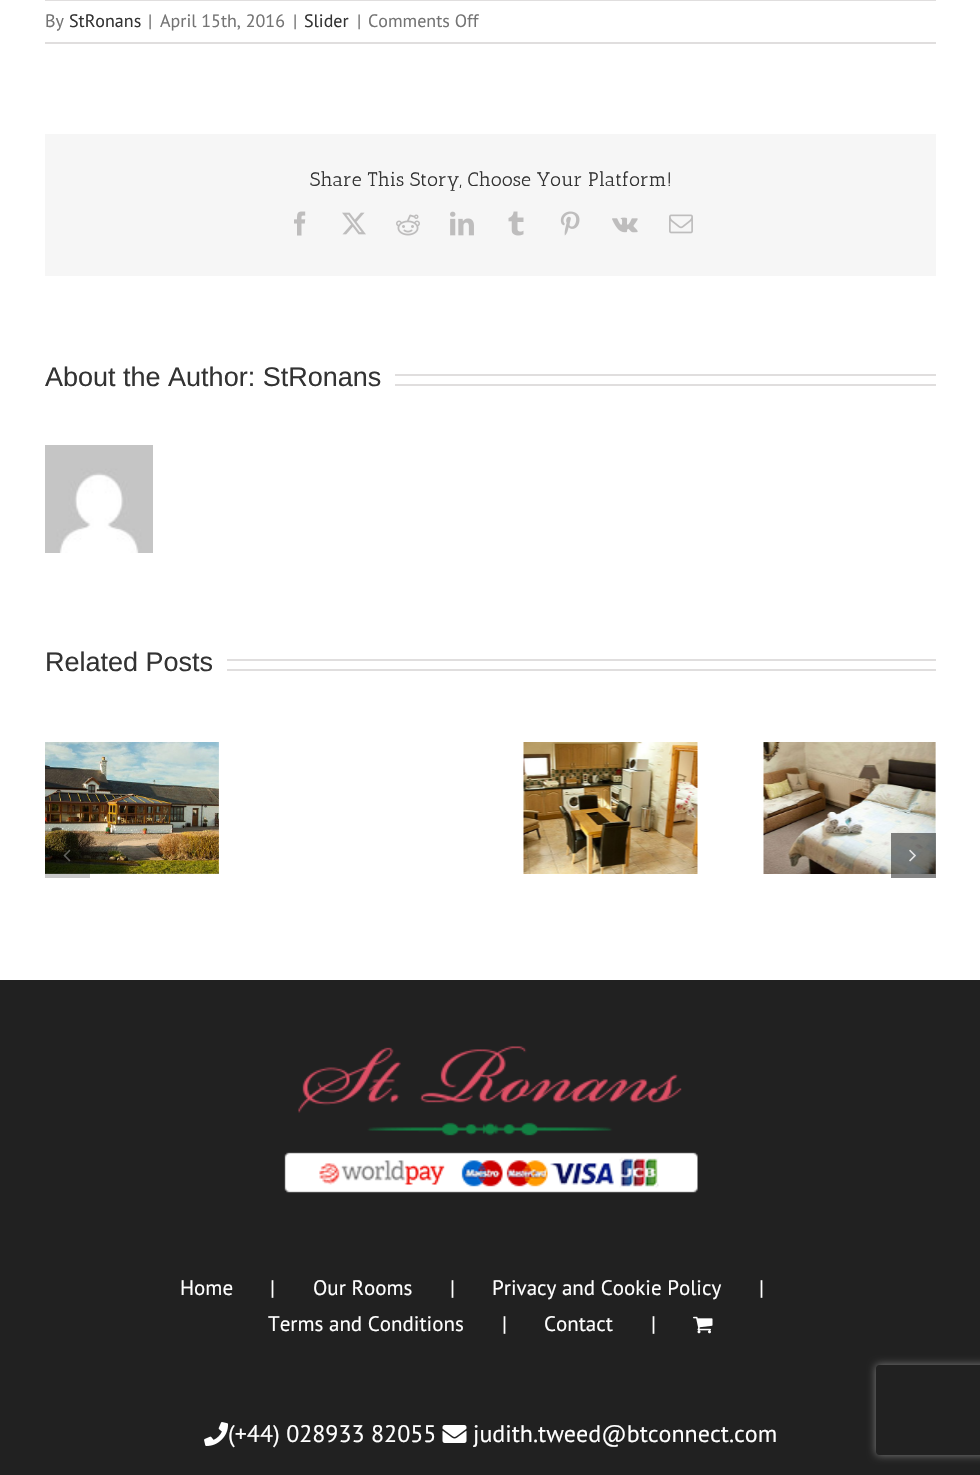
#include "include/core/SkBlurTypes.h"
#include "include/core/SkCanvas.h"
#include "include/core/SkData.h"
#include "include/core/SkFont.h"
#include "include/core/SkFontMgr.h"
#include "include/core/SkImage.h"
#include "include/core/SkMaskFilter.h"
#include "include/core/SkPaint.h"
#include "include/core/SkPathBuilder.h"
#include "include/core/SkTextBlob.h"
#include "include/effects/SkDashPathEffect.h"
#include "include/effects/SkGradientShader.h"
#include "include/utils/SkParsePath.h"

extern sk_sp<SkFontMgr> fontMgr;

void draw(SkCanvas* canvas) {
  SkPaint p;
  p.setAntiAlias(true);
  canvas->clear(SK_ColorWHITE);
  p.setColor(SkColorSetRGB(224, 222, 222));
  canvas->drawRect(SkRect::MakeLTRB(45, 0, 936, 1), p);
  canvas->drawRect(SkRect::MakeLTRB(45, 42, 936, 44), p);
  p.setColor(SkColorSetRGB(246, 246, 246));
  canvas->drawRect(SkRect::MakeLTRB(45, 134, 936, 276), p);
  canvas->drawImageRect(SkImages::DeferredFromEncodedData(SkData::MakeFromFileName("images/1.png")), SkRect::MakeLTRB(294, 211, 306, 236), SkSamplingOptions());
  canvas->drawImageRect(SkImages::DeferredFromEncodedData(SkData::MakeFromFileName("images/2.png")), SkRect::MakeLTRB(342, 212, 366, 235), SkSamplingOptions());
  canvas->drawImageRect(SkImages::DeferredFromEncodedData(SkData::MakeFromFileName("images/3.png")), SkRect::MakeLTRB(396, 214, 420, 236), SkSamplingOptions());
  canvas->drawImageRect(SkImages::DeferredFromEncodedData(SkData::MakeFromFileName("images/4.png")), SkRect::MakeLTRB(450, 211, 474, 236), SkSamplingOptions());
  canvas->drawImageRect(SkImages::DeferredFromEncodedData(SkData::MakeFromFileName("images/5.png")), SkRect::MakeLTRB(508, 211, 524, 236), SkSamplingOptions());
  canvas->drawImageRect(SkImages::DeferredFromEncodedData(SkData::MakeFromFileName("images/6.png")), SkRect::MakeLTRB(560, 211, 580, 236), SkSamplingOptions());
  canvas->drawImageRect(SkImages::DeferredFromEncodedData(SkData::MakeFromFileName("images/7.png")), SkRect::MakeLTRB(612, 217, 638, 233), SkSamplingOptions());
  canvas->drawImageRect(SkImages::DeferredFromEncodedData(SkData::MakeFromFileName("images/8.png")), SkRect::MakeLTRB(669, 214, 693, 234), SkSamplingOptions());
  p.setColor(SkColorSetRGB(224, 222, 222));
  canvas->drawRect(SkRect::MakeLTRB(395, 374, 936, 376), p);
  canvas->drawRect(SkRect::MakeLTRB(395, 384, 936, 386), p);
  canvas->drawImageRect(SkImages::DeferredFromEncodedData(SkData::MakeFromFileName("images/9.png")), SkRect::MakeLTRB(45, 445, 153, 553), SkSamplingOptions());
  canvas->drawRect(SkRect::MakeLTRB(227, 659, 936, 661), p);
  canvas->drawRect(SkRect::MakeLTRB(227, 669, 936, 671), p);
  canvas->drawImageRect(SkImages::DeferredFromEncodedData(SkData::MakeFromFileName("images/10.png")), SkRect::MakeLTRB(45, 742, 219, 874), SkSamplingOptions());
  canvas->drawImageRect(SkImages::DeferredFromEncodedData(SkData::MakeFromFileName("images/11.png")), SkRect::MakeLTRB(523, 742, 698, 874), SkSamplingOptions());
  canvas->drawImageRect(SkImages::DeferredFromEncodedData(SkData::MakeFromFileName("images/12.png")), SkRect::MakeLTRB(763, 742, 936, 874), SkSamplingOptions());
  p.setColor(SkColorSetARGB(54, 0, 0, 0));
  canvas->drawRect(SkRect::MakeLTRB(45, 833, 90, 878), p);
  canvas->drawImageRect(SkImages::DeferredFromEncodedData(SkData::MakeFromFileName("images/13.png")), SkRect::MakeLTRB(63, 849, 71, 862), SkSamplingOptions());
  p.setColor(SkColorSetARGB(122, 0, 0, 0));
  canvas->drawRect(SkRect::MakeLTRB(891, 833, 936, 878), p);
  canvas->drawImageRect(SkImages::DeferredFromEncodedData(SkData::MakeFromFileName("images/14.png")), SkRect::MakeLTRB(909, 849, 916, 862), SkSamplingOptions());
  p.setColor(SkColorSetRGB(33, 33, 33));
  canvas->drawRect(SkRect::MakeLTRB(0, 980, 980, 1475), p);
  canvas->drawImageRect(SkImages::DeferredFromEncodedData(SkData::MakeFromFileName("images/15.png")), SkRect::MakeLTRB(284, 1046, 698, 1193), SkSamplingOptions());
  canvas->drawImageRect(SkImages::DeferredFromEncodedData(SkData::MakeFromFileName("images/16.png")), SkRect::MakeLTRB(693, 1316, 713, 1334), SkSamplingOptions());
  canvas->drawImageRect(SkImages::DeferredFromEncodedData(SkData::MakeFromFileName("images/17.png")), SkRect::MakeLTRB(204, 1422, 229, 1446), SkSamplingOptions());
  canvas->drawImageRect(SkImages::DeferredFromEncodedData(SkData::MakeFromFileName("images/18.png")), SkRect::MakeLTRB(442, 1425, 467, 1443), SkSamplingOptions());
  canvas->save();
  canvas->clipPath(SkPathBuilder(SkPathFillType::kEvenOdd).moveTo(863, 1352).lineTo(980, 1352).lineTo(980, 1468).lineTo(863, 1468).close().moveTo(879, 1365).lineTo(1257, 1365).cubicTo(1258.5f, 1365, 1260, 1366.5f, 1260, 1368).lineTo(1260, 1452).cubicTo(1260, 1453.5f, 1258.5f, 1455, 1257, 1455).lineTo(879, 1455).cubicTo(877.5f, 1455, 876, 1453.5f, 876, 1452).lineTo(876, 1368).cubicTo(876, 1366.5f, 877.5f, 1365, 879, 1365).close().detach(), true);
  p.setColor(SkColorSetRGB(128, 128, 128));
  p.setMaskFilter(SkMaskFilter::MakeBlur(kNormal_SkBlurStyle, 4));
  canvas->drawRoundRect(SkRect::MakeLTRB(876, 1365, 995, 1455), 3, 3, p);
  p.setMaskFilter(nullptr);
  canvas->restore();
  SkFont font1(fontMgr->matchFamilyStyle("PT Sans", SkFontStyle::Normal()), 18);
  font1.setSubpixel(true);
  p.setColor(SkColorSetRGB(116, 116, 116));
  canvas->drawString("By", 45, 27, font1, p);
  p.setColor(SkColorSetRGB(51, 51, 51));
  canvas->drawString("StRonans", 69, 27, font1, p);
  p.setColor(SkColorSetRGB(116, 116, 116));
  canvas->drawString("|", 148, 27, font1, p);
  canvas->drawString("April 15th, 2016", 160, 27, font1, p);
  canvas->drawString("|", 293, 27, font1, p);
  p.setColor(SkColorSetRGB(51, 51, 51));
  canvas->drawString("Slider", 304, 27, font1, p);
  p.setColor(SkColorSetRGB(116, 116, 116));
  canvas->drawString("|", 357, 27, font1, p);
  canvas->drawString("Comments Off", 368, 27, font1, p);
  SkFont font2(fontMgr->matchFamilyStyle("Antic Slab", SkFontStyle::Normal()), 19.5f);
  font2.setSubpixel(true);
  p.setColor(SkColorSetRGB(51, 51, 51));
  canvas->drawString("Share This Story, Choose Your Platform!", 310, 186, font2, p);
  SkFont font3(fontMgr->matchFamilyStyle("Liberation Sans", SkFontStyle::Normal()), 27);
  font3.setSubpixel(true);
  canvas->drawString("About the Author: StRonans", 45, 386, font3, p);
  canvas->drawString("Related Posts", 45, 671, font3, p);
  SkFont font4(fontMgr->matchFamilyStyle("PT Sans", SkFontStyle::Normal()), 21);
  font4.setSubpixel(true);
  p.setColor(SK_ColorWHITE);
  canvas->drawString("Home", 180, 1295, font4, p);
  canvas->drawString("|", 270, 1295, font4, p);
  canvas->drawString("Our Rooms", 313, 1295, font4, p);
  canvas->drawString("|", 450, 1295, font4, p);
  canvas->drawString("Privacy and Cookie Policy", 492, 1295, font4, p);
  canvas->drawString("|", 759, 1295, font4, p);
  canvas->drawString("Terms and Conditions", 268, 1331, font4, p);
  canvas->drawString("|", 502, 1331, font4, p);
  canvas->drawString("Contact", 544, 1331, font4, p);
  canvas->drawString("|", 651, 1331, font4, p);
  SkFont font5(fontMgr->matchFamilyStyle("PT Sans", SkFontStyle::Normal()), 24);
  font5.setSubpixel(true);
  canvas->drawString("(+44) 028933 82055", 228, 1442, font5, p);
  canvas->drawString("judith.tweed@btconnect.com", 473, 1442, font5, p);
}
